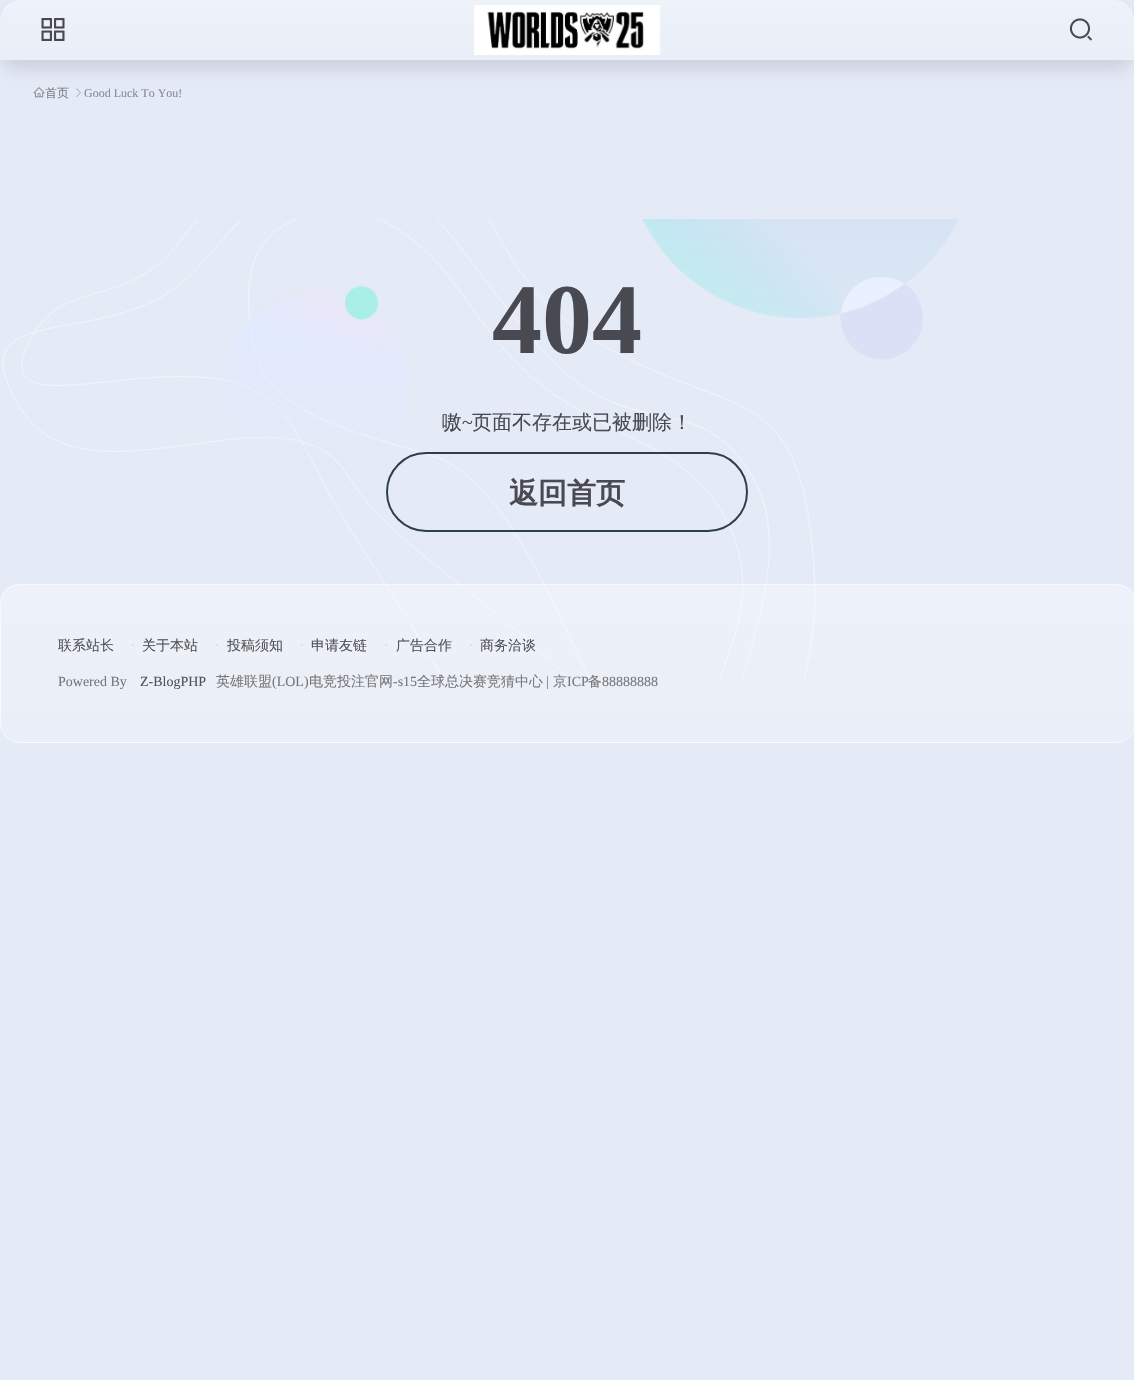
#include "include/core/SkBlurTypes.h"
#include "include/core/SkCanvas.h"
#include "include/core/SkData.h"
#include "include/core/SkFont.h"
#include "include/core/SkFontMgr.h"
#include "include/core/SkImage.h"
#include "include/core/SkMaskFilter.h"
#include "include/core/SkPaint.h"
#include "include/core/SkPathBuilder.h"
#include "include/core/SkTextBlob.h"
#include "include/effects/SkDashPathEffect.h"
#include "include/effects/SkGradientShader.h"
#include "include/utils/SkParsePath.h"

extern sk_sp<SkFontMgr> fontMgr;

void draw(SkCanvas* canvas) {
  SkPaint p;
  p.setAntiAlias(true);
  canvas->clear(SkColorSetRGB(228, 234, 246));
  canvas->drawImageRect(SkImages::DeferredFromEncodedData(SkData::MakeFromFileName("images/4.png")), SkRect::MakeLTRB(33, 87, 45, 98), SkSamplingOptions());
  canvas->drawImageRect(SkImages::DeferredFromEncodedData(SkData::MakeFromFileName("images/5.png")), SkRect::MakeLTRB(76, 88, 81, 97), SkSamplingOptions());
  p.setColor(SkColorSetARGB(26, 0, 0, 0));
  p.setMaskFilter(SkMaskFilter::MakeBlur(kNormal_SkBlurStyle, 7.5f));
  canvas->drawRoundRect(SkRect::MakeLTRB(0, 10, 1134, 70), 20, 20, p);
  p.setMaskFilter(nullptr);
  {
    const SkColor colors[] = {SkColorSetRGB(238, 242, 249), SkColorSetRGB(233, 238, 248)};
    const float stops[] = {0, 1};
    const SkPoint ends[] = {{567, 0}, {567, 60}};
    p.setShader(SkGradientShader::MakeLinear(ends, colors, stops, 2, SkTileMode::kClamp));
    p.setAlpha(255);
  }
  canvas->drawPath(SkPathBuilder().moveTo(20, 0).lineTo(1114, 0).cubicTo(1125, 0, 1134, 9, 1134, 20).lineTo(1134, 60).lineTo(0, 60).lineTo(0, 20).cubicTo(0, 9, 9, 0, 20, 0).close().detach(), p);
  canvas->drawImageRect(SkImages::DeferredFromEncodedData(SkData::MakeFromFileName("images/1.png")), SkRect::MakeLTRB(41, 18, 65, 41), SkSamplingOptions());
  canvas->drawImageRect(SkImages::DeferredFromEncodedData(SkData::MakeFromFileName("images/2.png")), SkRect::MakeLTRB(474, 5, 661, 55), SkSamplingOptions());
  canvas->drawImageRect(SkImages::DeferredFromEncodedData(SkData::MakeFromFileName("images/3.png")), SkRect::MakeLTRB(1069, 18, 1092, 41), SkSamplingOptions());
  canvas->drawImageRect(SkImages::DeferredFromEncodedData(SkData::MakeFromFileName("images/6.png")), SkRect::MakeLTRB(2, 219, 959, 679), SkSamplingOptions());
  p.setStyle(SkPaint::kStroke_Style);
  p.setStrokeWidth(2);
  p.setShader(nullptr);
  p.setColor(SkColorSetRGB(44, 62, 80));
  canvas->drawRoundRect(SkRect::MakeLTRB(387, 453, 747, 531), 39, 39, p);
  canvas->save();
  canvas->clipPath(SkPathBuilder().moveTo(20, 584).lineTo(1116, 584).cubicTo(1127, 584, 1136, 593, 1136, 604).lineTo(1136, 723).cubicTo(1136, 734, 1127, 743, 1116, 743).lineTo(20, 743).cubicTo(9, 743, 0, 734, 0, 723).lineTo(0, 604).cubicTo(0, 593, 9, 584, 20, 584).close().detach(), true);
  p.setStyle(SkPaint::kFill_Style);
  {
    const SkColor colors[] = {SkColorSetARGB(92, 255, 255, 255), SkColorSetARGB(51, 255, 255, 255)};
    const float stops[] = {0, 1};
    const SkPoint ends[] = {{568, 428}, {568, 585}};
    p.setShader(SkGradientShader::MakeLinear(ends, colors, stops, 2, SkTileMode::kClamp));
    p.setAlpha(255);
  }
  canvas->drawRect(SkRect::MakeLTRB(14, 584, 1122, 585), p);
  {
    const SkColor colors[] = {SkColorSetARGB(92, 255, 255, 255), SkColorSetARGB(51, 255, 255, 255)};
    const float stops[] = {0, 1};
    const SkPoint ends[] = {{568, 585}, {568, 742}};
    p.setShader(SkGradientShader::MakeLinear(ends, colors, stops, 2, SkTileMode::kClamp));
    p.setAlpha(255);
  }
  canvas->drawRect(SkRect::MakeLTRB(0, 585, 1134, 742), p);
  {
    const SkColor colors[] = {SkColorSetRGB(238, 242, 249), SkColorSetRGB(233, 238, 248)};
    const float stops[] = {0, 1};
    const SkPoint ends[] = {{568, 742}, {568, 899}};
    p.setShader(SkGradientShader::MakeLinear(ends, colors, stops, 2, SkTileMode::kClamp));
    p.setAlpha(255);
  }
  canvas->drawRect(SkRect::MakeLTRB(14, 742, 1122, 743), p);
  canvas->restore();
  p.setStyle(SkPaint::kStroke_Style);
  p.setStrokeWidth(1);
  p.setShader(nullptr);
  p.setColor(SkColorSetARGB(153, 255, 255, 255));
  canvas->drawRoundRect(SkRect::MakeLTRB(0.5f, 584.5f, 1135.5f, 742.5f), 19.5f, 19.5f, p);
  p.setStyle(SkPaint::kFill_Style);
  p.setColor(SkColorSetRGB(221, 221, 221));
  canvas->drawCircle(133, 645, 1, p);
  canvas->drawCircle(217, 645, 1, p);
  canvas->drawCircle(302, 645, 1, p);
  canvas->drawCircle(386, 645, 1, p);
  canvas->drawCircle(471, 645, 1, p);
  SkFont font1(fontMgr->matchFamilyStyle("WenQuanYi Zen Hei", SkFontStyle(500, SkFontStyle::kNormal_Width, SkFontStyle::kUpright_Slant)), 12);
  font1.setSubpixel(true);
  p.setColor(SkColorSetRGB(122, 124, 129));
  canvas->drawString("首页", 45, 97, font1, p);
  SkFont font2(fontMgr->matchFamilyStyle("Liberation Serif", SkFontStyle::Normal()), 12);
  font2.setSubpixel(true);
  p.setColor(SkColorSetRGB(135, 137, 148));
  canvas->drawString("Good Luck To You!", 84, 97, font2, p);
  SkFont font3(fontMgr->matchFamilyStyle("Liberation Serif", SkFontStyle::Bold()), 100);
  font3.setSubpixel(true);
  p.setColor(SkColorSetRGB(73, 73, 82));
  canvas->drawString("404", 492, 353, font3, p);
  SkFont font4(fontMgr->matchFamilyStyle("WenQuanYi Zen Hei", SkFontStyle(500, SkFontStyle::kNormal_Width, SkFontStyle::kUpright_Slant)), 20);
  font4.setSubpixel(true);
  canvas->drawString("嗷", 442, 429, font4, p);
  SkFont font5(fontMgr->matchFamilyStyle("Liberation Serif", SkFontStyle::Normal()), 20);
  font5.setSubpixel(true);
  canvas->drawString("~", 462, 429, font5, p);
  canvas->drawString("页面不存在或已被删除！", 472, 429, font4, p);
  SkFont font6(fontMgr->matchFamilyStyle("WenQuanYi Zen Hei", SkFontStyle::Bold()), 29);
  font6.setSubpixel(true);
  canvas->drawString("返回首页", 509, 503, font6, p);
  SkFont font7(fontMgr->matchFamilyStyle("WenQuanYi Zen Hei", SkFontStyle(500, SkFontStyle::kNormal_Width, SkFontStyle::kUpright_Slant)), 14);
  font7.setSubpixel(true);
  p.setColor(SkColorSetRGB(82, 82, 82));
  canvas->drawString("联系站长", 58, 650, font7, p);
  canvas->drawString("关于本站", 142, 650, font7, p);
  canvas->drawString("投稿须知", 227, 650, font7, p);
  canvas->drawString("申请友链", 311, 650, font7, p);
  canvas->drawString("广告合作", 396, 650, font7, p);
  canvas->drawString("商务洽谈", 480, 650, font7, p);
  SkFont font8(fontMgr->matchFamilyStyle("Liberation Serif", SkFontStyle::Normal()), 14);
  font8.setSubpixel(true);
  p.setColor(SkColorSetRGB(119, 119, 119));
  canvas->drawString("Powered By", 58, 686, font8, p);
  p.setColor(SkColorSetRGB(82, 82, 82));
  canvas->drawString("Z-BlogPHP", 140, 686, font8, p);
  p.setColor(SkColorSetRGB(119, 119, 119));
  canvas->drawString("英雄联盟", 216, 686, font7, p);
  canvas->drawString("(LOL)", 272, 686, font8, p);
  canvas->drawString("电竞投注官网", 309, 686, font7, p);
  canvas->drawString("-s15", 393, 686, font8, p);
  canvas->drawString("全球总决赛竞猜中心", 417, 686, font7, p);
  canvas->drawString("|", 546, 686, font8, p);
  canvas->drawString("京", 553, 686, font7, p);
  canvas->drawString("ICP", 567, 686, font8, p);
  canvas->drawString("备", 588, 686, font7, p);
  canvas->drawString("88888888", 602, 686, font8, p);
}
